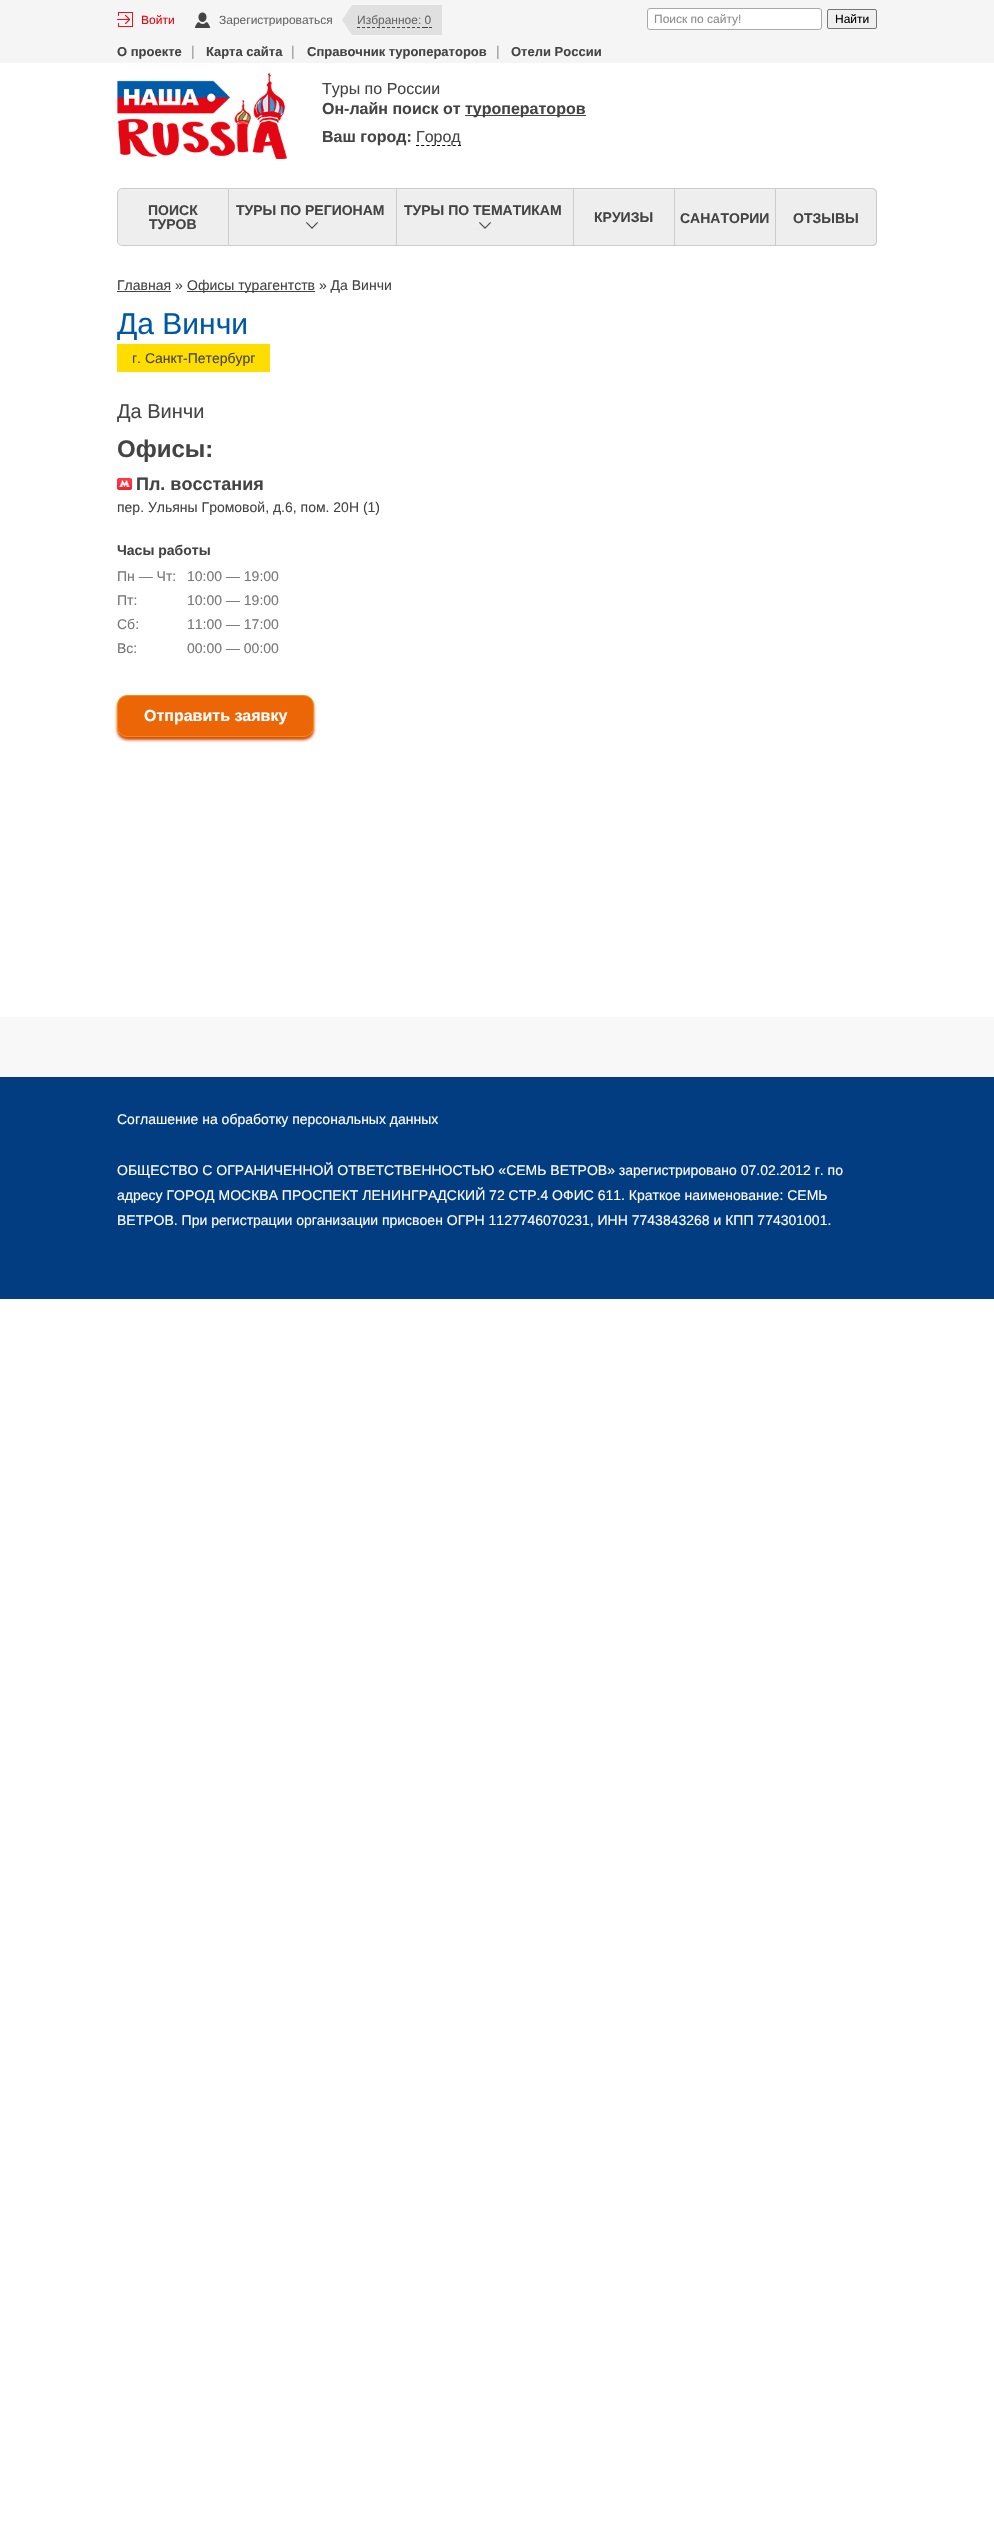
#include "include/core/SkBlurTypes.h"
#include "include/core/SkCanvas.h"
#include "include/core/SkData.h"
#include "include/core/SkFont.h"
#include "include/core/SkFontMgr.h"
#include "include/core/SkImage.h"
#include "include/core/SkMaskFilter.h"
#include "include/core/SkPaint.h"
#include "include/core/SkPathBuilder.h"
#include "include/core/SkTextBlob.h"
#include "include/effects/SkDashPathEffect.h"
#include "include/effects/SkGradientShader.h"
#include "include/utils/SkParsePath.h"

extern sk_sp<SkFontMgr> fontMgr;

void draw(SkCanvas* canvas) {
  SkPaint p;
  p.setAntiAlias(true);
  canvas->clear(SK_ColorWHITE);
  p.setColor(SkColorSetRGB(245, 245, 245));
  canvas->drawRect(SkRect::MakeLTRB(0, 0, 994, 63), p);
  canvas->drawImageRect(SkImages::DeferredFromEncodedData(SkData::MakeFromFileName("images/1.png")), SkRect::MakeLTRB(117, 12, 133, 27), SkSamplingOptions());
  canvas->drawImageRect(SkImages::DeferredFromEncodedData(SkData::MakeFromFileName("images/2.png")), SkRect::MakeLTRB(195, 12, 211, 28), SkSamplingOptions());
  p.setColor(SkColorSetRGB(224, 224, 224));
  canvas->drawRect(SkRect::MakeLTRB(352, 5, 442, 35), p);
  canvas->drawPath(SkPathBuilder().moveTo(352, 5).lineTo(352, 35).lineTo(342, 20).close().detach(), p);
  p.setStyle(SkPaint::kStroke_Style);
  p.setStrokeWidth(1);
  p.setColor(SkColorSetRGB(68, 68, 68));
  p.setPathEffect(SkDashPathEffect::Make({{3, 2}}, 0));
  canvas->drawPath(SkPathBuilder().moveTo(357, 27.5f).lineTo(425, 27.5f).detach(), p);
  p.setPathEffect(nullptr);
  canvas->drawPath(SkPathBuilder().moveTo(425, 27.5f).lineTo(428, 27.5f).moveTo(429, 27.5f).lineTo(432, 27.5f).detach(), p);
  p.setStyle(SkPaint::kFill_Style);
  p.setColor(SK_ColorWHITE);
  canvas->drawRoundRect(SkRect::MakeLTRB(647.5f, 8.5f, 821.5f, 29.5f), 2.5f, 2.5f, p);
  p.setStyle(SkPaint::kStroke_Style);
  p.setColor(SkColorSetRGB(169, 169, 169));
  canvas->drawRoundRect(SkRect::MakeLTRB(647.5f, 8.5f, 821.5f, 29.5f), 2.5f, 2.5f, p);
  p.setStyle(SkPaint::kFill_Style);
  p.setColor(SkColorSetRGB(239, 239, 239));
  canvas->drawRoundRect(SkRect::MakeLTRB(827.5f, 9.5f, 876.5f, 28.5f), 1.5f, 1.5f, p);
  p.setStyle(SkPaint::kStroke_Style);
  p.setColor(SkColorSetRGB(118, 118, 118));
  canvas->drawRoundRect(SkRect::MakeLTRB(827.5f, 9.5f, 876.5f, 28.5f), 1.5f, 1.5f, p);
  canvas->drawImageRect(SkImages::DeferredFromEncodedData(SkData::MakeFromFileName("images/3.png")), SkRect::MakeLTRB(117, 73, 287, 159), SkSamplingOptions());
  p.setStyle(SkPaint::kFill_Style);
  p.setColor(SkColorSetRGB(68, 68, 68));
  canvas->drawRect(SkRect::MakeLTRB(465, 115, 586, 116), p);
  p.setStyle(SkPaint::kStroke_Style);
  p.setColor(SK_ColorBLACK);
  p.setPathEffect(SkDashPathEffect::Make({{3, 2.25f}}, 0));
  canvas->drawPath(SkPathBuilder().moveTo(416, 145.5f).lineTo(461, 145.5f).detach(), p);
  p.setPathEffect(nullptr);
  p.setStyle(SkPaint::kFill_Style);
  p.setColor(SkColorSetRGB(238, 238, 238));
  canvas->drawPath(SkPathBuilder().moveTo(122, 188.5f).lineTo(228.5f, 188.5f).lineTo(228.5f, 245.5f).lineTo(122, 245.5f).cubicTo(119.5f, 245.5f, 117.5f, 243.5f, 117.5f, 241).lineTo(117.5f, 193).cubicTo(117.5f, 190.5f, 119.5f, 188.5f, 122, 188.5f).close().detach(), p);
  p.setStyle(SkPaint::kStroke_Style);
  p.setColor(SkColorSetRGB(204, 204, 204));
  canvas->drawPath(SkPathBuilder().moveTo(122, 188.5f).lineTo(228.5f, 188.5f).lineTo(228.5f, 245.5f).lineTo(122, 245.5f).cubicTo(119.5f, 245.5f, 117.5f, 243.5f, 117.5f, 241).lineTo(117.5f, 193).cubicTo(117.5f, 190.5f, 119.5f, 188.5f, 122, 188.5f).close().detach(), p);
  p.setStyle(SkPaint::kFill_Style);
  p.setColor(SkColorSetRGB(238, 238, 238));
  canvas->drawRect(SkRect::MakeLTRB(229, 189, 396, 245), p);
  p.setColor(SkColorSetRGB(204, 204, 204));
  canvas->drawRect(SkRect::MakeLTRB(229, 188, 776, 189), p);
  canvas->drawRect(SkRect::MakeLTRB(396, 188, 397, 246), p);
  canvas->drawRect(SkRect::MakeLTRB(229, 245, 397, 246), p);
  canvas->drawImageRect(SkImages::DeferredFromEncodedData(SkData::MakeFromFileName("images/4.png")), SkRect::MakeLTRB(304, 222, 318, 230), SkSamplingOptions());
  p.setColor(SkColorSetRGB(238, 238, 238));
  canvas->drawRect(SkRect::MakeLTRB(397, 189, 573, 245), p);
  p.setColor(SkColorSetRGB(204, 204, 204));
  canvas->drawRect(SkRect::MakeLTRB(573, 188, 574, 246), p);
  canvas->drawRect(SkRect::MakeLTRB(397, 245, 574, 246), p);
  canvas->drawImageRect(SkImages::DeferredFromEncodedData(SkData::MakeFromFileName("images/4.png")), SkRect::MakeLTRB(477, 222, 491, 230), SkSamplingOptions());
  p.setColor(SkColorSetRGB(238, 238, 238));
  canvas->drawRect(SkRect::MakeLTRB(574, 189, 674, 245), p);
  p.setColor(SkColorSetRGB(204, 204, 204));
  canvas->drawRect(SkRect::MakeLTRB(674, 188, 675, 246), p);
  canvas->drawRect(SkRect::MakeLTRB(574, 245, 675, 246), p);
  p.setColor(SkColorSetRGB(238, 238, 238));
  canvas->drawRect(SkRect::MakeLTRB(675, 189, 775, 245), p);
  p.setColor(SkColorSetRGB(204, 204, 204));
  canvas->drawRect(SkRect::MakeLTRB(775, 188, 776, 246), p);
  canvas->drawRect(SkRect::MakeLTRB(675, 245, 776, 246), p);
  p.setColor(SkColorSetRGB(238, 238, 238));
  canvas->drawPath(SkPathBuilder().moveTo(776, 188).lineTo(872, 188).cubicTo(875, 188, 877, 190, 877, 193).lineTo(877, 241).cubicTo(877, 244, 875, 246, 872, 246).lineTo(776, 246).close().detach(), p);
  p.setColor(SkColorSetRGB(204, 204, 204));
  canvas->drawPath(SkPathBuilder(SkPathFillType::kEvenOdd).moveTo(776, 188).lineTo(872, 188).cubicTo(875, 188, 877, 190, 877, 193).lineTo(877, 241).cubicTo(877, 244, 875, 246, 872, 246).lineTo(776, 246).close().moveTo(776, 189).lineTo(872, 189).cubicTo(874, 189, 876, 191, 876, 193).lineTo(876, 241).cubicTo(876, 243, 874, 245, 872, 245).lineTo(776, 245).close().detach(), p);
  p.setColor(SkColorSetRGB(68, 68, 68));
  canvas->drawRect(SkRect::MakeLTRB(117, 291, 171, 292), p);
  canvas->drawRect(SkRect::MakeLTRB(187, 291, 315, 292), p);
  p.setColor(SkColorSetRGB(255, 221, 0));
  canvas->drawRect(SkRect::MakeLTRB(117, 344, 270, 372), p);
  canvas->drawImageRect(SkImages::DeferredFromEncodedData(SkData::MakeFromFileName("images/5.png")), SkRect::MakeLTRB(117, 478, 132, 490), SkSamplingOptions());
  p.setColor(SkColorSetRGB(215, 73, 12));
  p.setMaskFilter(SkMaskFilter::MakeBlur(kNormal_SkBlurStyle, 1.5f));
  canvas->drawRoundRect(SkRect::MakeLTRB(117, 698, 314, 740), 10, 10, p);
  p.setMaskFilter(nullptr);
  p.setColor(SkColorSetRGB(236, 102, 8));
  canvas->drawRoundRect(SkRect::MakeLTRB(117.5f, 695.5f, 313.5f, 736.5f), 9.5f, 9.5f, p);
  p.setStyle(SkPaint::kStroke_Style);
  p.setColor(SkColorSetRGB(243, 146, 0));
  canvas->drawRoundRect(SkRect::MakeLTRB(117.5f, 695.5f, 313.5f, 736.5f), 9.5f, 9.5f, p);
  p.setStyle(SkPaint::kFill_Style);
  p.setColor(SkColorSetRGB(248, 248, 248));
  canvas->drawRect(SkRect::MakeLTRB(0, 1017, 994, 1077), p);
  p.setColor(SkColorSetRGB(2, 61, 129));
  canvas->drawRect(SkRect::MakeLTRB(0, 1077, 994, 1299), p);
  SkFont font1(fontMgr->matchFamilyStyle("Liberation Sans", SkFontStyle::Normal()), 12);
  font1.setSubpixel(true);
  p.setColor(SkColorSetRGB(228, 6, 19));
  canvas->drawString("Войти", 141, 24, font1, p);
  canvas->save();
  canvas->clipRect(SkRect::MakeLTRB(219, 14, 332, 26));
  p.setColor(SkColorSetRGB(102, 102, 102));
  canvas->drawString("Зарегистрироваться", 219, 24, font1, p);
  canvas->restore();
  canvas->drawString("Избранное: 0", 357, 24, font1, p);
  p.setColor(SkColorSetRGB(140, 140, 140));
  canvas->drawString("Поиск по сайту!", 654, 23, font1, p);
  p.setColor(SK_ColorBLACK);
  canvas->drawString("Найти", 835, 23, font1, p);
  SkFont font2(fontMgr->matchFamilyStyle("Liberation Sans", SkFontStyle::Bold()), 13);
  font2.setSubpixel(true);
  p.setColor(SkColorSetRGB(68, 68, 68));
  canvas->drawString("О проекте", 117, 56, font2, p);
  SkFont font3(fontMgr->matchFamilyStyle("Liberation Sans", SkFontStyle::Normal()), 14);
  font3.setSubpixel(true);
  p.setColor(SkColorSetRGB(153, 153, 153));
  canvas->drawString("|", 191, 56, font3, p);
  p.setColor(SkColorSetRGB(68, 68, 68));
  canvas->drawString("Карта сайта", 206, 56, font2, p);
  p.setColor(SkColorSetRGB(153, 153, 153));
  canvas->drawString("|", 291, 56, font3, p);
  p.setColor(SkColorSetRGB(68, 68, 68));
  canvas->drawString("Справочник туроператоров", 307, 56, font2, p);
  p.setColor(SkColorSetRGB(153, 153, 153));
  canvas->drawString("|", 496, 56, font3, p);
  p.setColor(SkColorSetRGB(68, 68, 68));
  canvas->drawString("Отели России", 511, 56, font2, p);
  SkFont font4(fontMgr->matchFamilyStyle("Liberation Sans", SkFontStyle::Normal()), 16);
  font4.setSubpixel(true);
  canvas->drawString("Туры по России", 322, 94, font4, p);
  SkFont font5(fontMgr->matchFamilyStyle("Liberation Sans", SkFontStyle::Bold()), 16);
  font5.setSubpixel(true);
  canvas->drawString("Он-лайн поиск от", 322, 114, font5, p);
  canvas->drawString("туроператоров", 465, 114, font5, p);
  canvas->drawString("Ваш город:", 322, 142, font5, p);
  canvas->drawString("Город", 416, 142, font4, p);
  SkFont font6(fontMgr->matchFamilyStyle("Liberation Sans", SkFontStyle::Bold()), 14);
  font6.setSubpixel(true);
  canvas->drawString("ПОИСК", 148, 215, font6, p);
  canvas->drawString("ТУРОВ", 149, 229, font6, p);
  canvas->drawString("ТУРЫ ПО РЕГИОНАМ", 236, 215, font6, p);
  canvas->drawString("ТУРЫ ПО ТЕМАТИКАМ", 404, 215, font6, p);
  canvas->drawString("КРУИЗЫ", 594, 222, font6, p);
  canvas->drawString("САНАТОРИИ", 680, 223, font6, p);
  canvas->drawString("ОТЗЫВЫ", 793, 223, font6, p);
  canvas->drawString("Главная »", 117, 290, font3, p);
  canvas->drawString("Офисы турагентств » Да Винчи", 187, 290, font3, p);
  SkFont font7(fontMgr->matchFamilyStyle("Liberation Sans", SkFontStyle::Normal()), 30);
  font7.setSubpixel(true);
  p.setColor(SkColorSetRGB(0, 88, 165));
  canvas->drawString("Да Винчи", 117, 334, font7, p);
  p.setColor(SkColorSetRGB(68, 68, 68));
  canvas->drawString("г. Санкт-Петербург", 132, 363, font3, p);
  SkFont font8(fontMgr->matchFamilyStyle("Liberation Sans", SkFontStyle::Normal()), 20);
  font8.setSubpixel(true);
  canvas->drawString("Да Винчи", 117, 418, font8, p);
  SkFont font9(fontMgr->matchFamilyStyle("Liberation Sans", SkFontStyle::Bold()), 24);
  font9.setSubpixel(true);
  canvas->drawString("Офисы:", 117, 457, font9, p);
  SkFont font10(fontMgr->matchFamilyStyle("Liberation Sans", SkFontStyle::Bold()), 18);
  font10.setSubpixel(true);
  canvas->drawString("Пл. восстания", 136, 490, font10, p);
  canvas->drawString("пер. Ульяны Громовой, д.6, пом. 20Н (1)", 117, 512, font3, p);
  canvas->drawString("Часы работы", 117, 555, font6, p);
  p.setColor(SkColorSetRGB(119, 119, 119));
  canvas->drawString("Пн — Чт:", 117, 581, font3, p);
  canvas->drawString("10:00 — 19:00", 187, 581, font3, p);
  canvas->drawString("Пт:", 117, 605, font3, p);
  canvas->drawString("10:00 — 19:00", 187, 605, font3, p);
  canvas->drawString("Сб:", 117, 629, font3, p);
  canvas->drawString("11:00 — 17:00", 187, 629, font3, p);
  canvas->drawString("Вс:", 117, 653, font3, p);
  canvas->drawString("00:00 — 00:00", 187, 653, font3, p);
  p.setColor(SK_ColorWHITE);
  canvas->drawString("Отправить заявку", 144, 721, font5, p);
  canvas->drawString("Соглашение на обработку персональных данных", 117, 1124, font3, p);
  canvas->drawString("ОБЩЕСТВО С ОГРАНИЧЕННОЙ ОТВЕТСТВЕННОСТЬЮ «СЕМЬ ВЕТРОВ» зарегистрировано 07.02.2012 г. по", 117, 1175, font3, p);
  canvas->drawString("адресу ГОРОД МОСКВА ПРОСПЕКТ ЛЕНИНГРАДСКИЙ 72 СТР.4 ОФИС 611. Краткое наименование: СЕМЬ", 117, 1200, font3, p);
  canvas->drawString("ВЕТРОВ. При регистрации организации присвоен ОГРН 1127746070231, ИНН 7743843268 и КПП 774301001.", 117, 1225, font3, p);
}
